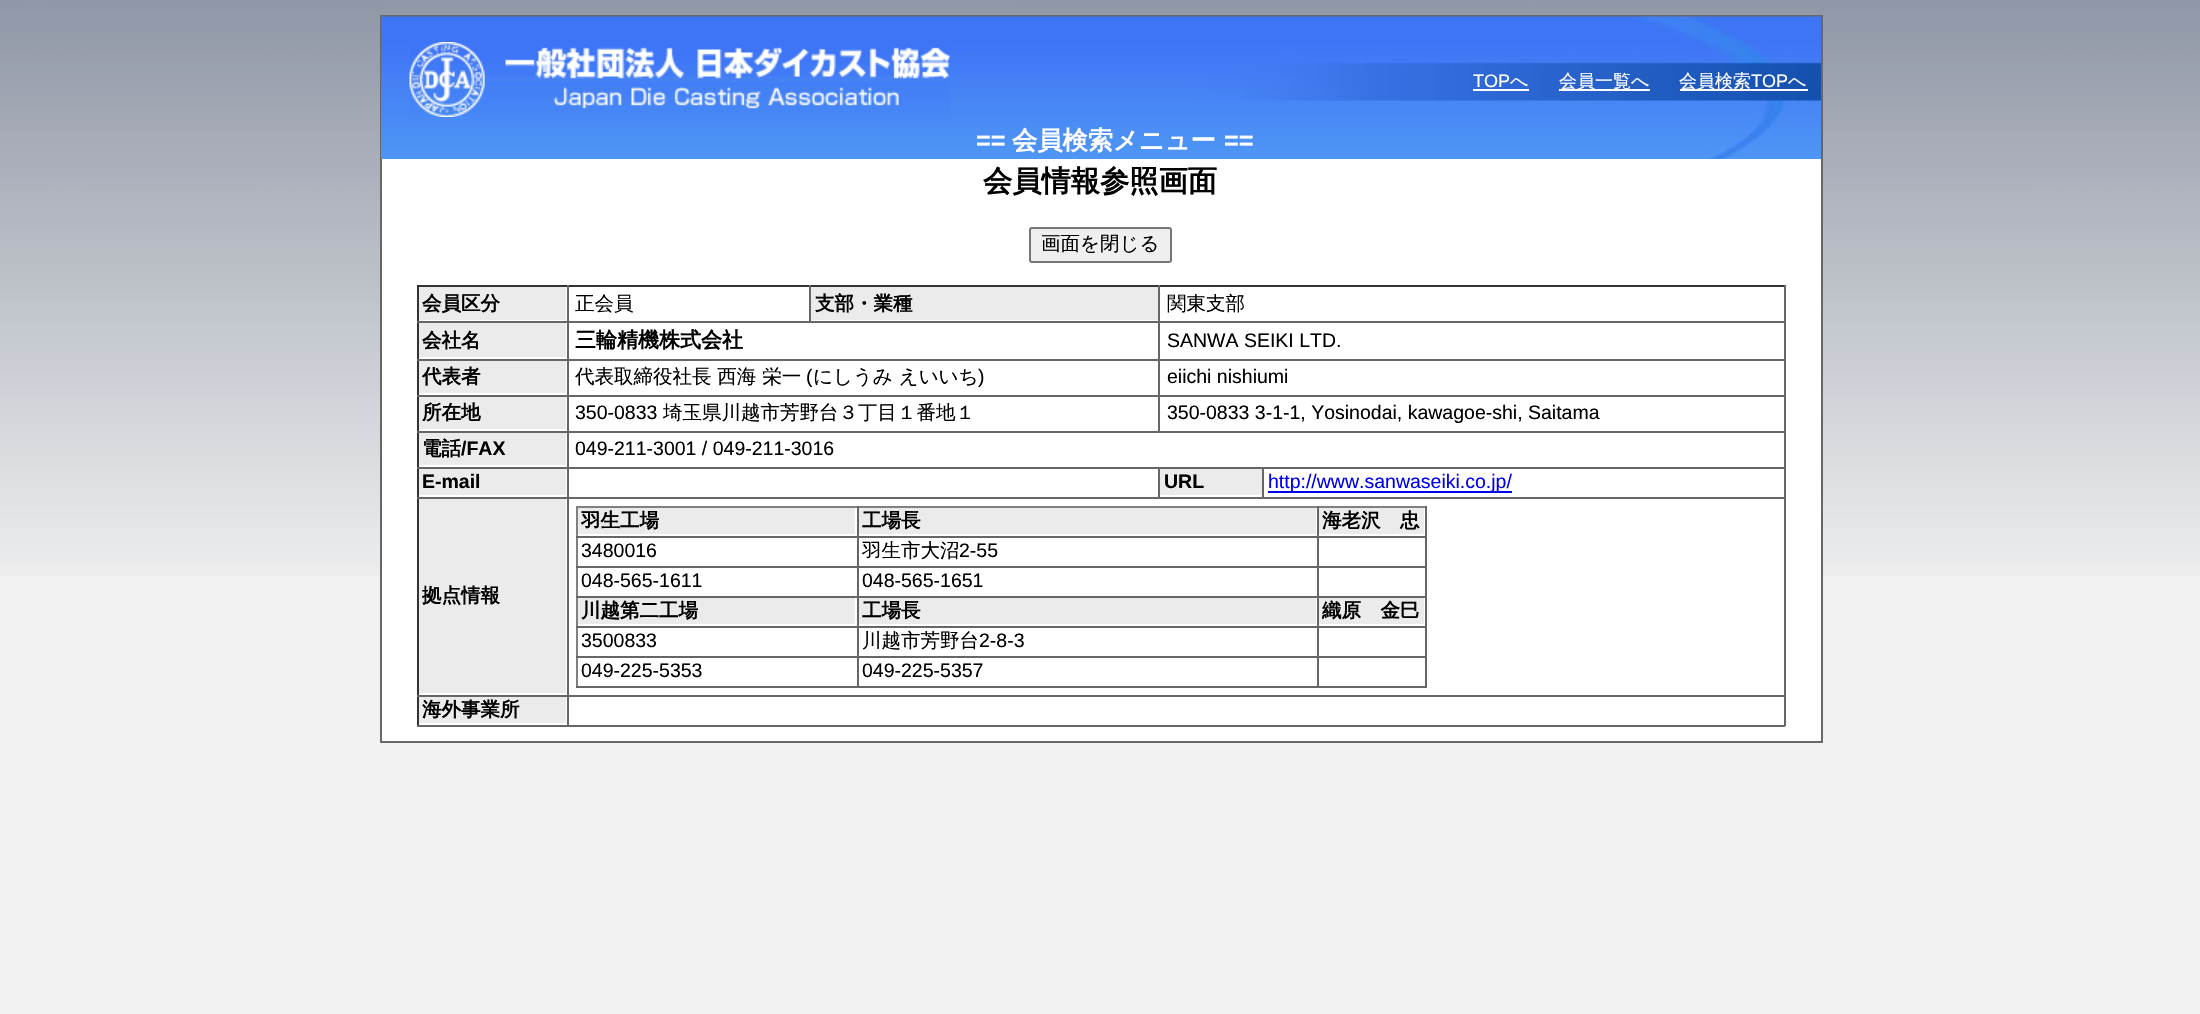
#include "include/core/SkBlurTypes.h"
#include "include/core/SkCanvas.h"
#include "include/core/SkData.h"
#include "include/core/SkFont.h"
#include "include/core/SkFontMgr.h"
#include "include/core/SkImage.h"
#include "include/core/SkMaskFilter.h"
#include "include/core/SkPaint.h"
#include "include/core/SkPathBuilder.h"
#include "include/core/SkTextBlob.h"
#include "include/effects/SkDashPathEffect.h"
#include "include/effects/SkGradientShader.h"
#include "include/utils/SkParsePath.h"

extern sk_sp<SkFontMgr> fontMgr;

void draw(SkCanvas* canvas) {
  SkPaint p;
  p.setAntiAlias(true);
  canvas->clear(SkColorSetRGB(242, 242, 242));
  canvas->drawImageRect(SkImages::DeferredFromEncodedData(SkData::MakeFromFileName("images/1.png")), SkRect::MakeLTRB(0, 0, 2200, 576), SkSamplingOptions());
  p.setColor(SK_ColorWHITE);
  canvas->drawRect(SkRect::MakeLTRB(382, 159, 1821, 741), p);
  p.setStyle(SkPaint::kStroke_Style);
  p.setStrokeWidth(2);
  p.setColor(SkColorSetRGB(103, 103, 103));
  canvas->drawRect(SkRect::MakeLTRB(381, 16, 1822, 742), p);
  canvas->drawImageRect(SkImages::DeferredFromEncodedData(SkData::MakeFromFileName("images/2.png")), SkRect::MakeLTRB(381, 16, 1821, 159), SkSamplingOptions());
  canvas->drawImageRect(SkImages::DeferredFromEncodedData(SkData::MakeFromFileName("images/3.png")), SkRect::MakeLTRB(409, 42, 950, 117), SkSamplingOptions());
  p.setStyle(SkPaint::kFill_Style);
  p.setColor(SK_ColorWHITE);
  canvas->drawRect(SkRect::MakeLTRB(1473, 89, 1529, 91), p);
  canvas->drawRect(SkRect::MakeLTRB(1559, 89, 1650, 91), p);
  canvas->drawRect(SkRect::MakeLTRB(1680, 89, 1808, 91), p);
  p.setColor(SkColorSetRGB(239, 239, 239));
  canvas->drawRoundRect(SkRect::MakeLTRB(1030, 228, 1171, 262), 2, 2, p);
  p.setStyle(SkPaint::kStroke_Style);
  p.setColor(SkColorSetRGB(118, 118, 118));
  canvas->drawRoundRect(SkRect::MakeLTRB(1030, 228, 1171, 262), 2, 2, p);
  p.setStyle(SkPaint::kFill_Style);
  p.setColor(SkColorSetRGB(51, 51, 51));
  canvas->drawRect(SkRect::MakeLTRB(417, 285, 1785, 287), p);
  canvas->drawRect(SkRect::MakeLTRB(417, 285, 419, 726), p);
  p.setColor(SkColorSetRGB(235, 235, 235));
  canvas->drawRect(SkRect::MakeLTRB(419, 287, 566, 320), p);
  p.setColor(SkColorSetRGB(102, 102, 102));
  canvas->drawRect(SkRect::MakeLTRB(1784, 285, 1786, 726), p);
  canvas->drawRect(SkRect::MakeLTRB(1158, 431, 1785, 433), p);
  canvas->drawRect(SkRect::MakeLTRB(1158, 395, 1160, 432), p);
  canvas->drawRect(SkRect::MakeLTRB(1158, 395, 1785, 397), p);
  canvas->drawRect(SkRect::MakeLTRB(1158, 359, 1160, 396), p);
  canvas->drawRect(SkRect::MakeLTRB(1158, 359, 1785, 361), p);
  canvas->drawRect(SkRect::MakeLTRB(1158, 321, 1160, 360), p);
  canvas->drawRect(SkRect::MakeLTRB(1158, 321, 1785, 323), p);
  canvas->drawRect(SkRect::MakeLTRB(1158, 285, 1160, 323), p);
  canvas->drawRect(SkRect::MakeLTRB(809, 321, 1160, 323), p);
  canvas->drawRect(SkRect::MakeLTRB(809, 285, 811, 323), p);
  canvas->drawRect(SkRect::MakeLTRB(1262, 497, 1785, 499), p);
  canvas->drawRect(SkRect::MakeLTRB(1262, 467, 1264, 498), p);
  canvas->drawRect(SkRect::MakeLTRB(1158, 497, 1263, 499), p);
  canvas->drawRect(SkRect::MakeLTRB(1158, 467, 1160, 498), p);
  canvas->drawRect(SkRect::MakeLTRB(567, 725, 1785, 727), p);
  canvas->drawRect(SkRect::MakeLTRB(567, 695, 569, 726), p);
  canvas->drawRect(SkRect::MakeLTRB(567, 695, 1785, 697), p);
  canvas->drawRect(SkRect::MakeLTRB(567, 497, 569, 696), p);
  canvas->drawRect(SkRect::MakeLTRB(567, 497, 1160, 499), p);
  canvas->drawRect(SkRect::MakeLTRB(567, 467, 569, 498), p);
  canvas->drawRect(SkRect::MakeLTRB(567, 467, 1785, 469), p);
  canvas->drawRect(SkRect::MakeLTRB(567, 431, 569, 468), p);
  canvas->drawRect(SkRect::MakeLTRB(567, 431, 1160, 433), p);
  canvas->drawRect(SkRect::MakeLTRB(567, 395, 569, 432), p);
  canvas->drawRect(SkRect::MakeLTRB(567, 395, 1160, 397), p);
  canvas->drawRect(SkRect::MakeLTRB(567, 359, 569, 396), p);
  canvas->drawRect(SkRect::MakeLTRB(567, 359, 1160, 361), p);
  canvas->drawRect(SkRect::MakeLTRB(567, 321, 569, 360), p);
  canvas->drawRect(SkRect::MakeLTRB(567, 321, 810, 323), p);
  canvas->drawRect(SkRect::MakeLTRB(567, 285, 569, 323), p);
  canvas->drawRect(SkRect::MakeLTRB(417, 321, 569, 323), p);
  p.setColor(SkColorSetRGB(235, 235, 235));
  canvas->drawRect(SkRect::MakeLTRB(811, 287, 1158, 320), p);
  canvas->drawRect(SkRect::MakeLTRB(419, 323, 566, 357), p);
  p.setColor(SkColorSetRGB(102, 102, 102));
  canvas->drawRect(SkRect::MakeLTRB(417, 359, 569, 361), p);
  p.setColor(SkColorSetRGB(235, 235, 235));
  canvas->drawRect(SkRect::MakeLTRB(419, 361, 566, 393), p);
  p.setColor(SkColorSetRGB(102, 102, 102));
  canvas->drawRect(SkRect::MakeLTRB(417, 395, 569, 397), p);
  p.setColor(SkColorSetRGB(235, 235, 235));
  canvas->drawRect(SkRect::MakeLTRB(419, 397, 566, 429), p);
  p.setColor(SkColorSetRGB(102, 102, 102));
  canvas->drawRect(SkRect::MakeLTRB(417, 431, 569, 433), p);
  p.setColor(SkColorSetRGB(235, 235, 235));
  canvas->drawRect(SkRect::MakeLTRB(419, 433, 566, 465), p);
  p.setColor(SkColorSetRGB(102, 102, 102));
  canvas->drawRect(SkRect::MakeLTRB(417, 467, 569, 469), p);
  p.setColor(SkColorSetRGB(235, 235, 235));
  canvas->drawRect(SkRect::MakeLTRB(419, 469, 566, 495), p);
  p.setColor(SkColorSetRGB(102, 102, 102));
  canvas->drawRect(SkRect::MakeLTRB(417, 497, 569, 499), p);
  p.setColor(SkColorSetRGB(235, 235, 235));
  canvas->drawRect(SkRect::MakeLTRB(1160, 469, 1262, 495), p);
  p.setColor(SkColorSetRGB(0, 0, 238));
  canvas->drawRect(SkRect::MakeLTRB(1268, 491, 1512, 493), p);
  p.setColor(SkColorSetRGB(235, 235, 235));
  canvas->drawRect(SkRect::MakeLTRB(419, 499, 566, 693), p);
  p.setColor(SkColorSetRGB(102, 102, 102));
  canvas->drawRect(SkRect::MakeLTRB(417, 695, 569, 697), p);
  p.setColor(SkColorSetRGB(128, 128, 128));
  canvas->drawRect(SkRect::MakeLTRB(576, 506, 1427, 508), p);
  canvas->drawRect(SkRect::MakeLTRB(576, 506, 578, 687), p);
  p.setColor(SkColorSetRGB(235, 235, 235));
  canvas->drawRect(SkRect::MakeLTRB(578, 508, 855, 534), p);
  p.setColor(SkColorSetRGB(102, 102, 102));
  canvas->drawRect(SkRect::MakeLTRB(1425, 506, 1427, 687), p);
  canvas->drawRect(SkRect::MakeLTRB(1317, 686, 1427, 688), p);
  canvas->drawRect(SkRect::MakeLTRB(1317, 656, 1319, 687), p);
  canvas->drawRect(SkRect::MakeLTRB(1317, 656, 1427, 658), p);
  canvas->drawRect(SkRect::MakeLTRB(1317, 626, 1319, 657), p);
  canvas->drawRect(SkRect::MakeLTRB(1317, 626, 1427, 628), p);
  canvas->drawRect(SkRect::MakeLTRB(1317, 596, 1319, 627), p);
  canvas->drawRect(SkRect::MakeLTRB(1317, 596, 1427, 598), p);
  canvas->drawRect(SkRect::MakeLTRB(1317, 566, 1319, 597), p);
  canvas->drawRect(SkRect::MakeLTRB(1317, 566, 1427, 568), p);
  canvas->drawRect(SkRect::MakeLTRB(1317, 536, 1319, 567), p);
  canvas->drawRect(SkRect::MakeLTRB(1317, 536, 1427, 538), p);
  canvas->drawRect(SkRect::MakeLTRB(1317, 506, 1319, 537), p);
  canvas->drawRect(SkRect::MakeLTRB(857, 686, 1319, 688), p);
  canvas->drawRect(SkRect::MakeLTRB(857, 656, 859, 687), p);
  canvas->drawRect(SkRect::MakeLTRB(857, 656, 1319, 658), p);
  canvas->drawRect(SkRect::MakeLTRB(857, 626, 859, 657), p);
  canvas->drawRect(SkRect::MakeLTRB(857, 626, 1319, 628), p);
  canvas->drawRect(SkRect::MakeLTRB(857, 596, 859, 627), p);
  canvas->drawRect(SkRect::MakeLTRB(857, 596, 1319, 598), p);
  canvas->drawRect(SkRect::MakeLTRB(857, 566, 859, 597), p);
  canvas->drawRect(SkRect::MakeLTRB(857, 566, 1319, 568), p);
  canvas->drawRect(SkRect::MakeLTRB(857, 536, 859, 567), p);
  canvas->drawRect(SkRect::MakeLTRB(857, 536, 1319, 538), p);
  canvas->drawRect(SkRect::MakeLTRB(857, 506, 859, 537), p);
  canvas->drawRect(SkRect::MakeLTRB(576, 536, 858, 538), p);
  p.setColor(SkColorSetRGB(235, 235, 235));
  canvas->drawRect(SkRect::MakeLTRB(859, 508, 1316, 534), p);
  canvas->drawRect(SkRect::MakeLTRB(1319, 508, 1424, 534), p);
  p.setColor(SkColorSetRGB(102, 102, 102));
  canvas->drawRect(SkRect::MakeLTRB(576, 566, 858, 568), p);
  canvas->drawRect(SkRect::MakeLTRB(576, 596, 858, 598), p);
  p.setColor(SkColorSetRGB(235, 235, 235));
  canvas->drawRect(SkRect::MakeLTRB(578, 598, 855, 624), p);
  p.setColor(SkColorSetRGB(102, 102, 102));
  canvas->drawRect(SkRect::MakeLTRB(576, 626, 858, 628), p);
  p.setColor(SkColorSetRGB(235, 235, 235));
  canvas->drawRect(SkRect::MakeLTRB(859, 598, 1316, 624), p);
  canvas->drawRect(SkRect::MakeLTRB(1319, 598, 1424, 624), p);
  p.setColor(SkColorSetRGB(102, 102, 102));
  canvas->drawRect(SkRect::MakeLTRB(576, 656, 858, 658), p);
  canvas->drawRect(SkRect::MakeLTRB(576, 686, 858, 688), p);
  p.setColor(SkColorSetRGB(235, 235, 235));
  canvas->drawRect(SkRect::MakeLTRB(419, 697, 566, 723), p);
  p.setColor(SkColorSetRGB(102, 102, 102));
  canvas->drawRect(SkRect::MakeLTRB(417, 725, 569, 727), p);
  SkFont font1(fontMgr->matchFamilyStyle("Liberation Sans", SkFontStyle::Normal()), 18);
  font1.setSubpixel(true);
  p.setColor(SK_ColorWHITE);
  canvas->drawString("TOP", 1473, 87, font1, p);
  SkFont font2(fontMgr->matchFamilyStyle("WenQuanYi Zen Hei", SkFontStyle(500, SkFontStyle::kNormal_Width, SkFontStyle::kUpright_Slant)), 18);
  font2.setSubpixel(true);
  canvas->drawString("へ", 1510, 87, font2, p);
  canvas->drawString("会員一覧へ", 1559, 87, font2, p);
  canvas->drawString("会員検索", 1679, 87, font2, p);
  canvas->drawString("TOP", 1751, 87, font1, p);
  canvas->drawString("へ", 1788, 87, font2, p);
  SkFont font3(fontMgr->matchFamilyStyle("Liberation Sans", SkFontStyle::Bold()), 25.25f);
  font3.setSubpixel(true);
  canvas->drawString("==", 976, 149, font3, p);
  SkFont font4(fontMgr->matchFamilyStyle("WenQuanYi Zen Hei", SkFontStyle::Bold()), 25.25f);
  font4.setSubpixel(true);
  canvas->drawString("会員検索メニュー", 1012, 149, font4, p);
  canvas->drawString("==", 1224, 149, font3, p);
  SkFont font5(fontMgr->matchFamilyStyle("WenQuanYi Zen Hei", SkFontStyle::Bold()), 29.25f);
  font5.setSubpixel(true);
  p.setColor(SK_ColorBLACK);
  canvas->drawString("会員情報参照画面", 983, 191, font5, p);
  SkFont font6(fontMgr->matchFamilyStyle("WenQuanYi Zen Hei", SkFontStyle(500, SkFontStyle::kNormal_Width, SkFontStyle::kUpright_Slant)), 19.5f);
  font6.setSubpixel(true);
  canvas->drawString("画面を閉じる", 1041, 250, font6, p);
  SkFont font7(fontMgr->matchFamilyStyle("WenQuanYi Zen Hei", SkFontStyle::Bold()), 19.5f);
  font7.setSubpixel(true);
  canvas->drawString("会員区分", 422, 310, font7, p);
  canvas->drawString("正会員", 575, 310, font6, p);
  canvas->drawString("支部・業種", 815, 310, font7, p);
  canvas->drawString("関東支部", 1167, 310, font6, p);
  canvas->drawString("会社名", 422, 347, font7, p);
  SkFont font8(fontMgr->matchFamilyStyle("WenQuanYi Zen Hei", SkFontStyle::Bold()), 21);
  font8.setSubpixel(true);
  canvas->drawString("三輪精機株式会社", 575, 347, font8, p);
  SkFont font9(fontMgr->matchFamilyStyle("Liberation Sans", SkFontStyle::Normal()), 19.5f);
  font9.setSubpixel(true);
  canvas->drawString("SANWA SEIKI LTD.", 1167, 347, font9, p);
  canvas->drawString("代表者", 422, 383, font7, p);
  canvas->drawString("代表取締役社長 西海 栄一", 575, 383, font6, p);
  canvas->drawString("(", 806, 383, font9, p);
  canvas->drawString("にしうみ えいいち", 813, 383, font6, p);
  canvas->drawString(")", 978, 383, font9, p);
  canvas->drawString("eiichi nishiumi", 1167, 383, font9, p);
  canvas->drawString("所在地", 422, 419, font7, p);
  canvas->drawString("350-0833", 575, 419, font9, p);
  canvas->drawString("埼玉県川越市芳野台３丁目１番地１", 663, 419, font6, p);
  canvas->drawString("350-0833 3-1-1, Yosinodai, kawagoe-shi, Saitama", 1167, 419, font9, p);
  canvas->drawString("電話", 422, 455, font7, p);
  SkFont font10(fontMgr->matchFamilyStyle("Liberation Sans", SkFontStyle::Bold()), 19.5f);
  font10.setSubpixel(true);
  canvas->drawString("/FAX", 461, 455, font10, p);
  canvas->drawString("049-211-3001 / 049-211-3016", 575, 455, font9, p);
  canvas->drawString("E-mail", 422, 488, font10, p);
  canvas->drawString("URL", 1164, 488, font10, p);
  p.setColor(SkColorSetRGB(0, 0, 238));
  canvas->drawString("http://www.sanwaseiki.co.jp/", 1268, 488, font9, p);
  p.setColor(SK_ColorBLACK);
  canvas->drawString("拠点情報", 422, 602, font7, p);
  canvas->drawString("羽生工場", 581, 527, font7, p);
  canvas->drawString("工場長", 862, 527, font7, p);
  canvas->drawString("海老沢　忠", 1322, 527, font7, p);
  canvas->drawString("3480016", 581, 557, font9, p);
  canvas->drawString("羽生市大沼", 862, 557, font6, p);
  canvas->drawString("2-55", 959, 557, font9, p);
  canvas->drawString("048-565-1611", 581, 587, font9, p);
  canvas->drawString("048-565-1651", 862, 587, font9, p);
  canvas->drawString("川越第二工場", 581, 617, font7, p);
  canvas->drawString("工場長", 862, 617, font7, p);
  canvas->drawString("織原　金巳", 1322, 617, font7, p);
  canvas->drawString("3500833", 581, 647, font9, p);
  canvas->drawString("川越市芳野台", 862, 647, font6, p);
  canvas->drawString("2-8-3", 979, 647, font9, p);
  canvas->drawString("049-225-5353", 581, 677, font9, p);
  canvas->drawString("049-225-5357", 862, 677, font9, p);
  canvas->drawString("海外事業所", 422, 716, font7, p);
}
